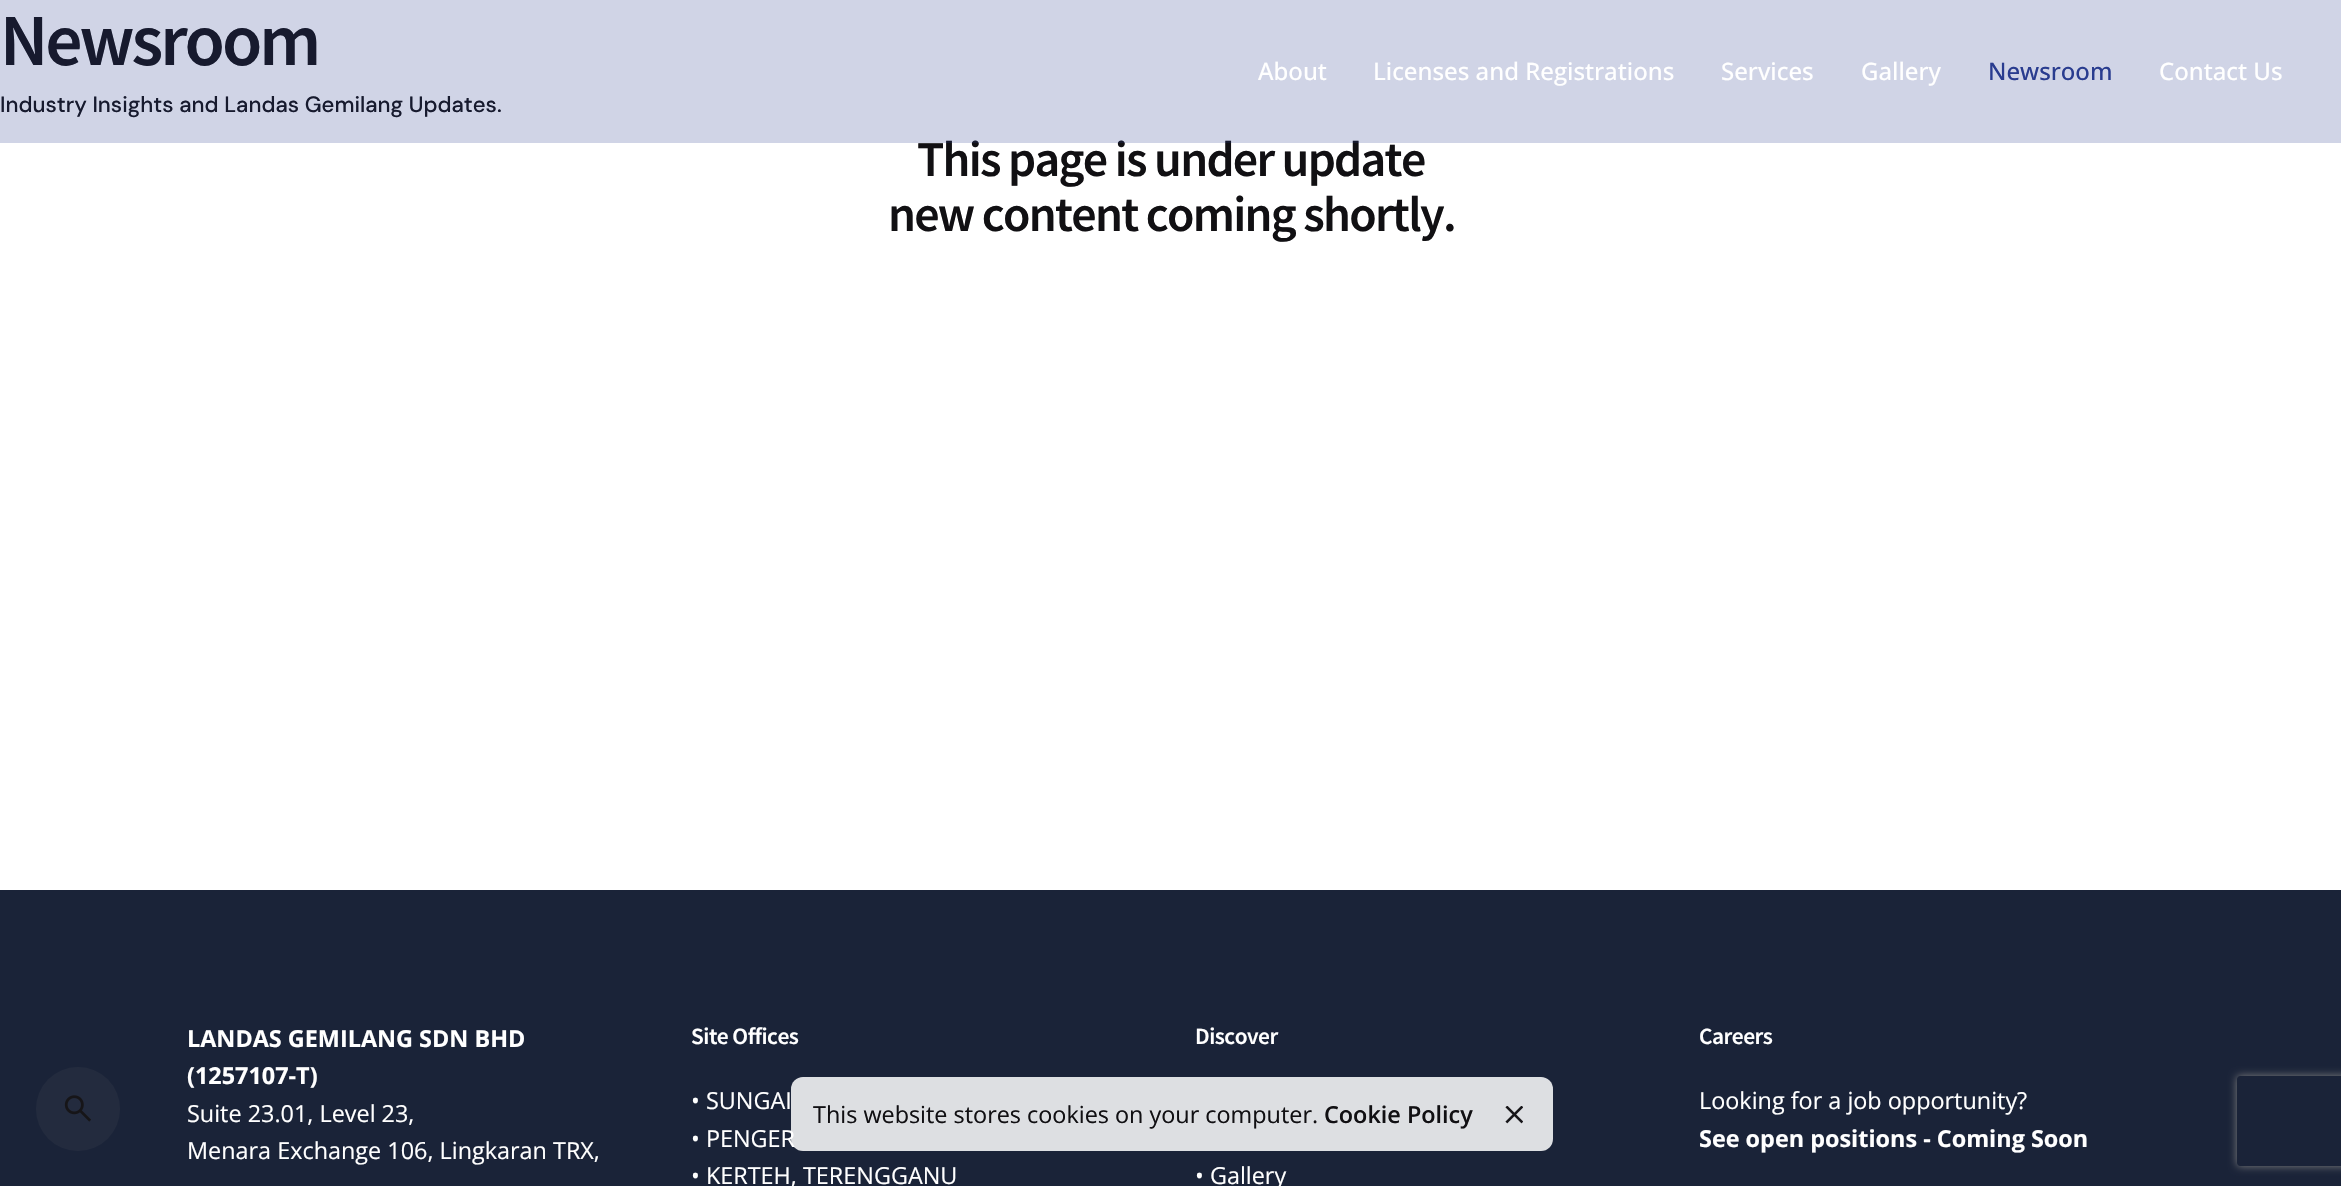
#include "include/core/SkBlurTypes.h"
#include "include/core/SkCanvas.h"
#include "include/core/SkData.h"
#include "include/core/SkFont.h"
#include "include/core/SkFontMgr.h"
#include "include/core/SkImage.h"
#include "include/core/SkMaskFilter.h"
#include "include/core/SkPaint.h"
#include "include/core/SkPathBuilder.h"
#include "include/core/SkTextBlob.h"
#include "include/effects/SkDashPathEffect.h"
#include "include/effects/SkGradientShader.h"
#include "include/utils/SkParsePath.h"

extern sk_sp<SkFontMgr> fontMgr;

void draw(SkCanvas* canvas) {
  SkPaint p;
  p.setAntiAlias(true);
  auto spacedText = [&](const char* s, float x, float y, const SkFont& font, const SkPaint& ink, float letter, float word) {
    std::vector<SkGlyphID> glyphs(font.countText(s, strlen(s), SkTextEncoding::kUTF8));
    std::vector<float> xs(glyphs.size());
    font.textToGlyphs(s, strlen(s), SkTextEncoding::kUTF8, glyphs);
    font.getXPos(glyphs, xs, x);
    float extra = 0;
    for (size_t i = 0; i < glyphs.size(); i++) {
      xs[i] += extra;
      extra += letter + word * (glyphs[i] == font.unicharToGlyph(' '));
    }
    canvas->drawTextBlob(SkTextBlob::MakeFromPosHGlyphs(glyphs, xs, y, font), 0, 0, ink);
  };
  canvas->clear(SK_ColorWHITE);
  p.setColor(SkColorSetRGB(26, 35, 56));
  canvas->drawRect(SkRect::MakeLTRB(0, 890, 2341, 1186), p);
  p.setColor(SkColorSetRGB(35, 43, 62));
  canvas->drawCircle(78, 1109, 42, p);
  canvas->drawImageRect(SkImages::DeferredFromEncodedData(SkData::MakeFromFileName("images/1.png")), SkRect::MakeLTRB(64, 1095, 91, 1122), SkSamplingOptions());
  canvas->save();
  canvas->clipPath(SkPathBuilder(SkPathFillType::kEvenOdd).moveTo(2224, 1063).lineTo(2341, 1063).lineTo(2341, 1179).lineTo(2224, 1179).close().moveTo(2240, 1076).lineTo(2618, 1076).cubicTo(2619.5f, 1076, 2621, 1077.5f, 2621, 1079).lineTo(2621, 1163).cubicTo(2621, 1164.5f, 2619.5f, 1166, 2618, 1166).lineTo(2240, 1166).cubicTo(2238.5f, 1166, 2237, 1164.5f, 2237, 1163).lineTo(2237, 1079).cubicTo(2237, 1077.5f, 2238.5f, 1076, 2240, 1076).close().detach(), true);
  p.setColor(SkColorSetRGB(128, 128, 128));
  p.setMaskFilter(SkMaskFilter::MakeBlur(kNormal_SkBlurStyle, 4));
  canvas->drawRoundRect(SkRect::MakeLTRB(2237, 1076, 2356, 1166), 3, 3, p);
  p.setMaskFilter(nullptr);
  canvas->restore();
  SkFont font1(fontMgr->matchFamilyStyle("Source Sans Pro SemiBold", SkFontStyle(600, SkFontStyle::kNormal_Width, SkFontStyle::kUpright_Slant)), 73.5f);
  font1.setSubpixel(true);
  p.setColor(SkColorSetRGB(17, 16, 19));
  spacedText("Newsroom", 0, 65, font1, p, -3, 0);
  SkFont font2(fontMgr->matchFamilyStyle("DM Sans", SkFontStyle(500, SkFontStyle::kNormal_Width, SkFontStyle::kUpright_Slant)), 22.1f);
  font2.setSubpixel(true);
  canvas->drawString("Industry Insights and Landas Gemilang Updates.", 0, 112, font2, p);
  SkFont font3(fontMgr->matchFamilyStyle("Source Sans Pro SemiBold", SkFontStyle(600, SkFontStyle::kNormal_Width, SkFontStyle::kUpright_Slant)), 50);
  font3.setSubpixel(true);
  spacedText("This page is under update", 917, 176, font3, p, -1.75f, 0);
  spacedText("new content coming shortly.", 888, 231, font3, p, -1.75f, 0);
  p.setColor(SkColorSetARGB(56, 41, 60, 143));
  canvas->drawRect(SkRect::MakeLTRB(0, 0, 2341, 143), p);
  SkFont font4(fontMgr->matchFamilyStyle("Open Sans", SkFontStyle(500, SkFontStyle::kNormal_Width, SkFontStyle::kUpright_Slant)), 24);
  font4.setSubpixel(true);
  p.setColor(SK_ColorWHITE);
  canvas->drawString("About", 1258, 80, font4, p);
  canvas->drawString("Licenses and Registrations", 1373, 80, font4, p);
  canvas->drawString("Services", 1721, 80, font4, p);
  canvas->drawString("Gallery", 1861, 80, font4, p);
  p.setColor(SkColorSetRGB(41, 60, 143));
  canvas->drawString("Newsroom", 1988, 80, font4, p);
  p.setColor(SK_ColorWHITE);
  canvas->drawString("Contact Us", 2159, 80, font4, p);
  SkFont font5(fontMgr->matchFamilyStyle("Open Sans", SkFontStyle::Bold()), 23.4f);
  font5.setSubpixel(true);
  canvas->drawString("LANDAS GEMILANG SDN BHD", 187, 1047, font5, p);
  canvas->drawString("(1257107-T)", 187, 1084, font5, p);
  SkFont font6(fontMgr->matchFamilyStyle("Open Sans", SkFontStyle::Normal()), 23.4f);
  font6.setSubpixel(true);
  canvas->drawString("Suite 23.01, Level 23,", 187, 1122, font6, p);
  canvas->drawString("Menara Exchange 106, Lingkaran TRX,", 187, 1159, font6, p);
  SkFont font7(fontMgr->matchFamilyStyle("Source Sans Pro SemiBold", SkFontStyle(600, SkFontStyle::kNormal_Width, SkFontStyle::kUpright_Slant)), 23.4f);
  font7.setSubpixel(true);
  spacedText("Site Offices", 691, 1044, font7, p, -0.5f, 0);
  canvas->drawString("• SUNGAI", 691, 1109, font6, p);
  canvas->drawString("• PENGER", 691, 1147, font6, p);
  canvas->drawString("• KERTEH, TERENGGANU", 691, 1184, font6, p);
  spacedText("Discover", 1195, 1044, font7, p, -0.5f, 0);
  canvas->drawString("• Gallery", 1195, 1184, font6, p);
  spacedText("Careers", 1699, 1044, font7, p, -0.5f, 0);
  canvas->drawString("Looking for a job opportunity?", 1699, 1109, font6, p);
  canvas->drawString("See open positions - Coming Soon", 1699, 1147, font5, p);
  p.setColor(SkColorSetARGB(217, 255, 255, 255));
  canvas->drawRoundRect(SkRect::MakeLTRB(791, 1077, 1553, 1151), 12, 12, p);
  p.setColor(SkColorSetRGB(17, 16, 19));
  canvas->drawString("This website stores cookies on your computer.", 813, 1123, font6, p);
  SkFont font8(fontMgr->matchFamilyStyle("Open Sans", SkFontStyle(600, SkFontStyle::kNormal_Width, SkFontStyle::kUpright_Slant)), 23.4f);
  font8.setSubpixel(true);
  canvas->drawString("Cookie Policy", 1324, 1123, font8, p);
  canvas->drawImageRect(SkImages::DeferredFromEncodedData(SkData::MakeFromFileName("images/2.png")), SkRect::MakeLTRB(1505, 1106, 1523, 1124), SkSamplingOptions());
}
